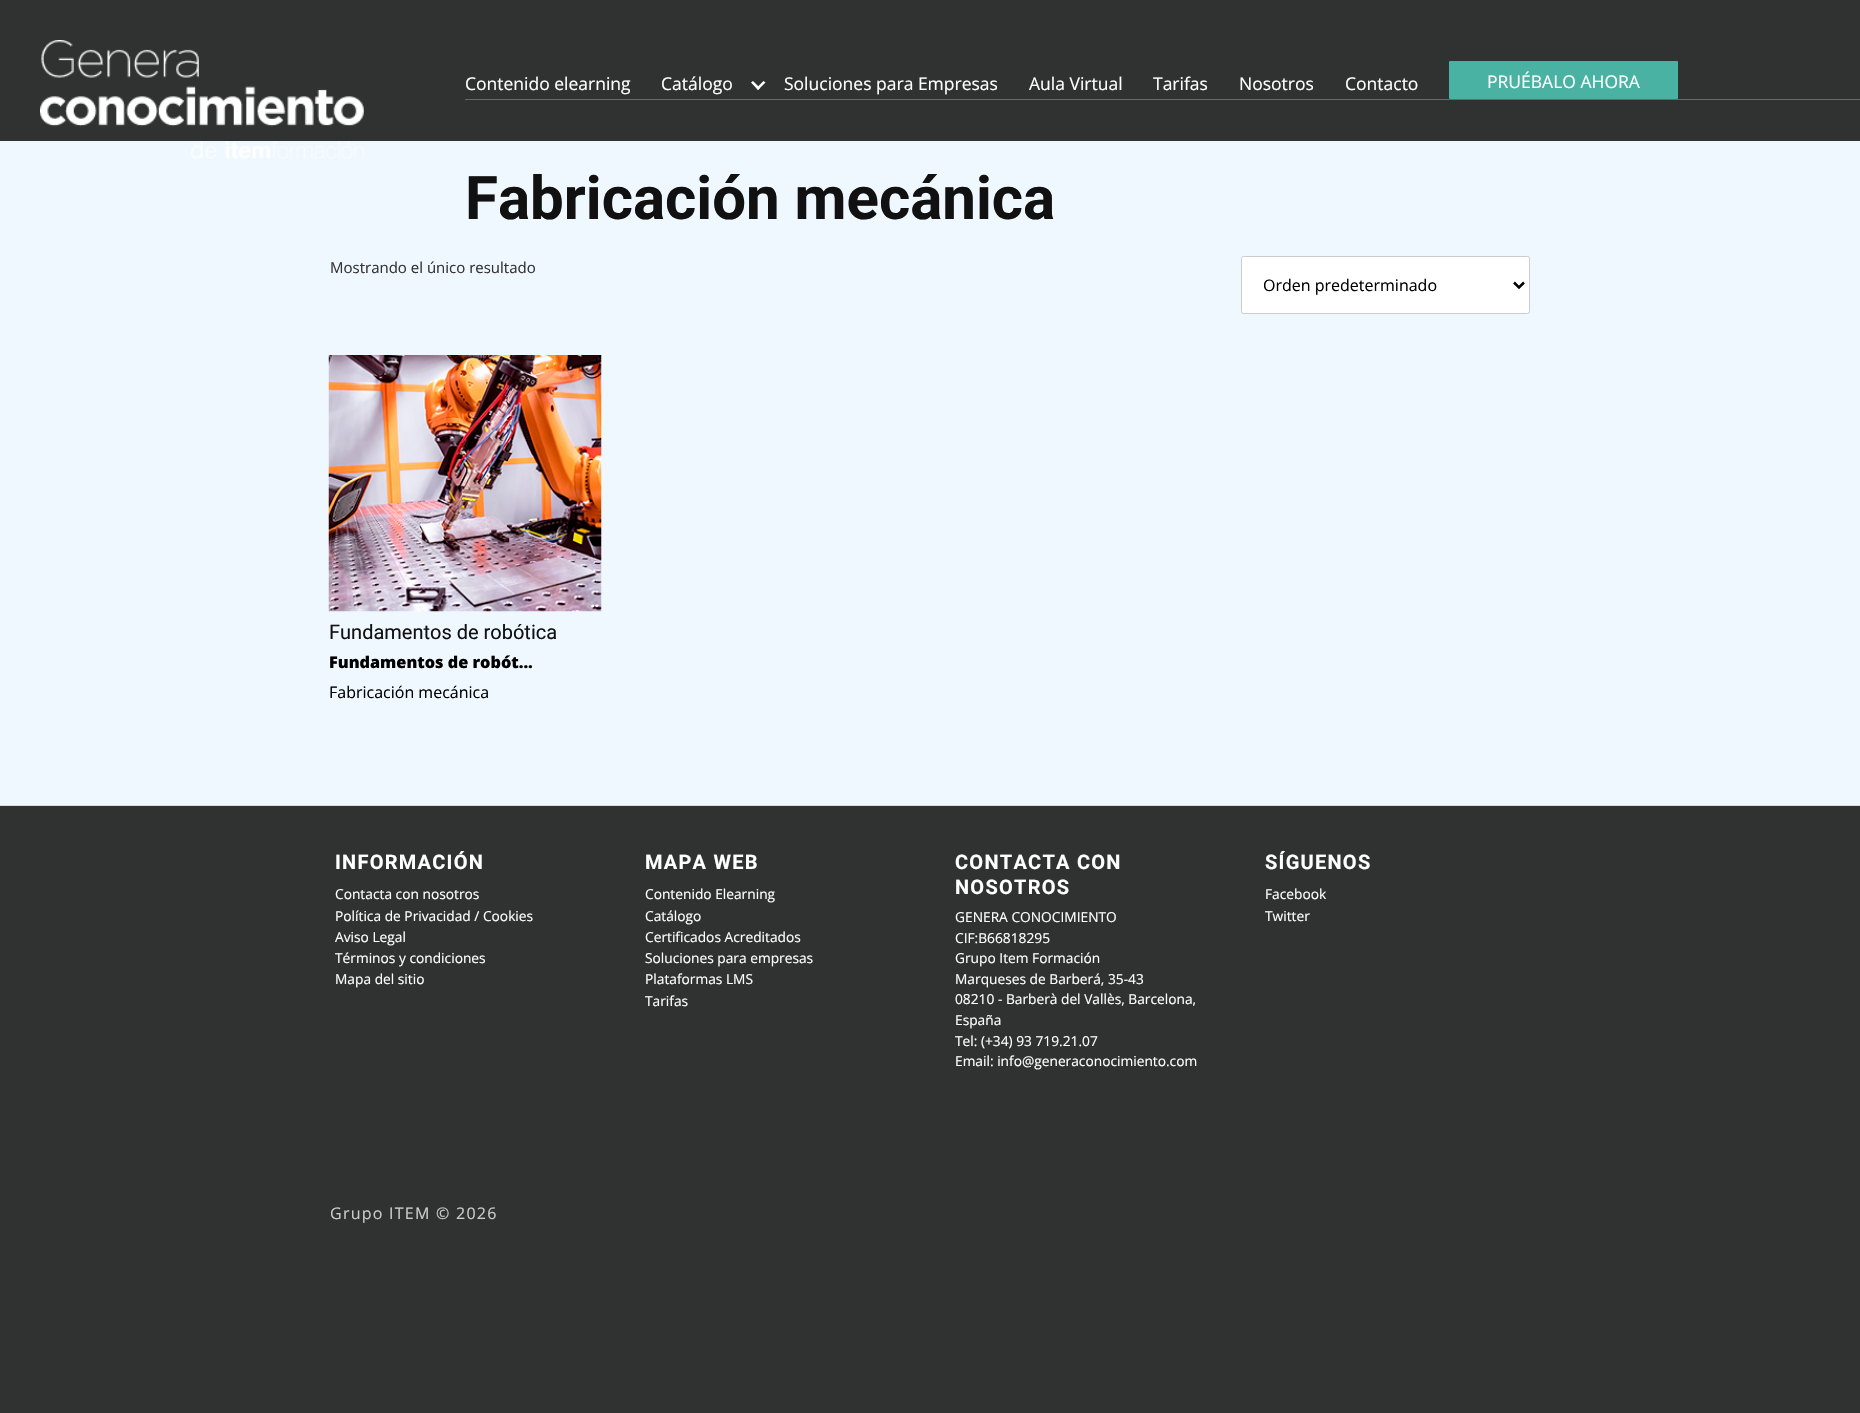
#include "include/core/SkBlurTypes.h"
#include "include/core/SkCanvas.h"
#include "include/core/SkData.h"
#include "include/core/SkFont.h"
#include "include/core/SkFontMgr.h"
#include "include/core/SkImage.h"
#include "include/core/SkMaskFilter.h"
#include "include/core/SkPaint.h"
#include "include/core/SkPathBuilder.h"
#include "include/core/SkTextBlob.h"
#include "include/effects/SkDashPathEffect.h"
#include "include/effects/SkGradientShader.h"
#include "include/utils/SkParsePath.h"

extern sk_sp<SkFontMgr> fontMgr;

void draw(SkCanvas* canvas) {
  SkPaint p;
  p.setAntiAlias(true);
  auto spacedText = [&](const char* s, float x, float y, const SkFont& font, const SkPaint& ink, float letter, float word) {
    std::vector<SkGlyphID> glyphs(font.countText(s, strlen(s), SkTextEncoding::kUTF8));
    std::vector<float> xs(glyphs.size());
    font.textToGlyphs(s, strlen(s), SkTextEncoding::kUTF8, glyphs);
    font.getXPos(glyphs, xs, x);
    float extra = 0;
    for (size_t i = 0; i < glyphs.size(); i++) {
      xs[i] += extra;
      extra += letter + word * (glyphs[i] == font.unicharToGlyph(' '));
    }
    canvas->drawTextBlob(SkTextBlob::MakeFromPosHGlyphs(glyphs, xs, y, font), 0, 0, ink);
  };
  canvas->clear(SkColorSetRGB(48, 49, 49));
  p.setColor(SkColorSetRGB(240, 248, 255));
  canvas->drawRect(SkRect::MakeLTRB(0, 141, 1860, 805), p);
  canvas->drawImageRect(SkImages::DeferredFromEncodedData(SkData::MakeFromFileName("images/1.png")), SkRect::MakeLTRB(40, 40, 364, 159), SkSamplingOptions());
  p.setColor(SkColorSetRGB(104, 104, 104));
  canvas->drawRect(SkRect::MakeLTRB(465, 99, 1860, 100), p);
  p.setColor(SK_ColorWHITE);
  canvas->drawPath(SkPathBuilder().moveTo(763.5f, 81).lineTo(765.5f, 82.5f).lineTo(758, 90).lineTo(756.5f, 88).close().detach(), p);
  canvas->drawPath(SkPathBuilder().moveTo(753, 81).lineTo(760, 88).lineTo(758, 90).lineTo(751, 82.5f).close().detach(), p);
  p.setColor(SkColorSetRGB(73, 178, 163));
  canvas->drawRoundRect(SkRect::MakeLTRB(1449, 61, 1678, 99), 1, 1, p);
  p.setColor(SK_ColorWHITE);
  canvas->drawRoundRect(SkRect::MakeLTRB(1241.5f, 256.5f, 1529.5f, 313.5f), 2, 2, p);
  p.setStyle(SkPaint::kStroke_Style);
  p.setStrokeWidth(1);
  p.setColor(SkColorSetRGB(204, 204, 204));
  canvas->drawRoundRect(SkRect::MakeLTRB(1241.5f, 256.5f, 1529.5f, 313.5f), 2, 2, p);
  p.setStrokeWidth(2.5f);
  p.setColor(SK_ColorBLACK);
  canvas->drawPath(SkPathBuilder().moveTo(1514, 282.5f).lineTo(1519, 287.5f).lineTo(1524, 282.5f).detach(), p);
  canvas->drawImageRect(SkImages::DeferredFromEncodedData(SkData::MakeFromFileName("images/2.png")), SkRect::MakeLTRB(328, 355, 602, 612), SkSamplingOptions());
  p.setStyle(SkPaint::kFill_Style);
  p.setColor(SkColorSetRGB(219, 219, 219));
  canvas->drawRect(SkRect::MakeLTRB(0, 805, 1860, 806), p);
  SkFont font1(fontMgr->matchFamilyStyle("Open Sans", SkFontStyle::Normal()), 17.5f);
  font1.setSubpixel(true);
  p.setColor(SK_ColorWHITE);
  canvas->drawString("Contenido elearning", 465, 90, font1, p);
  canvas->drawString("Catálogo", 661, 90, font1, p);
  canvas->drawString("Soluciones para Empresas", 784, 90, font1, p);
  canvas->drawString("Aula Virtual", 1029, 90, font1, p);
  canvas->drawString("Tarifas", 1153, 90, font1, p);
  canvas->drawString("Nosotros", 1239, 90, font1, p);
  canvas->drawString("Contacto", 1345, 90, font1, p);
  canvas->drawString("PRUÉBALO AHORA", 1487, 88, font1, p);
  SkFont font2(fontMgr->matchFamilyStyle("Roboto", SkFontStyle::Bold()), 60);
  font2.setSubpixel(true);
  p.setColor(SkColorSetRGB(17, 17, 17));
  canvas->drawString("Fabricación mecánica", 465, 219, font2, p);
  SkFont font3(fontMgr->matchFamilyStyle("Open Sans", SkFontStyle::Normal()), 15);
  font3.setSubpixel(true);
  p.setColor(SkColorSetRGB(51, 51, 51));
  canvas->drawString("Mostrando el único resultado", 330, 273, font3, p);
  SkFont font4(fontMgr->matchFamilyStyle("Open Sans", SkFontStyle::Normal()), 16);
  font4.setSubpixel(true);
  p.setColor(SK_ColorBLACK);
  canvas->drawString("Orden predeterminado", 1263, 291, font4, p);
  SkFont font5(fontMgr->matchFamilyStyle("Roboto", SkFontStyle::Normal()), 20);
  font5.setSubpixel(true);
  p.setColor(SkColorSetRGB(17, 17, 17));
  canvas->drawString("Fundamentos de robótica", 329, 639, font5, p);
  SkFont font6(fontMgr->matchFamilyStyle("Open Sans", SkFontStyle(800, SkFontStyle::kNormal_Width, SkFontStyle::kUpright_Slant)), 16.25f);
  font6.setSubpixel(true);
  p.setColor(SK_ColorBLACK);
  canvas->drawString("Fundamentos de robót...", 329, 668, font6, p);
  canvas->drawString("Fabricación mecánica", 329, 698, font4, p);
  SkFont font7(fontMgr->matchFamilyStyle("Roboto", SkFontStyle::Bold()), 20);
  font7.setSubpixel(true);
  p.setColor(SK_ColorWHITE);
  spacedText("INFORMACIÓN", 335, 869, font7, p, 1.25f, 0);
  SkFont font8(fontMgr->matchFamilyStyle("Open Sans", SkFontStyle::Normal()), 13.75f);
  font8.setSubpixel(true);
  canvas->drawString("Contacta con nosotros", 335, 899, font8, p);
  canvas->drawString("Política de Privacidad / Cookies", 335, 921, font8, p);
  canvas->drawString("Aviso Legal", 335, 942, font8, p);
  canvas->drawString("Términos y condiciones", 335, 963, font8, p);
  canvas->drawString("Mapa del sitio", 335, 984, font8, p);
  spacedText("MAPA WEB", 645, 869, font7, p, 1.25f, 0);
  canvas->drawString("Contenido Elearning", 645, 899, font8, p);
  canvas->drawString("Catálogo", 645, 921, font8, p);
  canvas->drawString("Certificados Acreditados", 645, 942, font8, p);
  canvas->drawString("Soluciones para empresas", 645, 963, font8, p);
  canvas->drawString("Plataformas LMS", 645, 984, font8, p);
  canvas->drawString("Tarifas", 645, 1006, font8, p);
  spacedText("CONTACTA CON", 955, 869, font7, p, 1.25f, 0);
  spacedText("NOSOTROS", 955, 894, font7, p, 1.25f, 0);
  canvas->drawString("GENERA CONOCIMIENTO", 955, 922, font8, p);
  canvas->drawString("CIF:B66818295", 955, 943, font8, p);
  canvas->drawString("Grupo Item Formación", 955, 963, font8, p);
  canvas->drawString("Marqueses de Barberá, 35-43", 955, 984, font8, p);
  canvas->drawString("08210 - Barberà del Vallès, Barcelona,", 955, 1004, font8, p);
  canvas->drawString("España", 955, 1025, font8, p);
  canvas->drawString("Tel: (+34) 93 719.21.07", 955, 1046, font8, p);
  canvas->drawString("Email: info@generaconocimiento.com", 955, 1066, font8, p);
  spacedText("SÍGUENOS", 1265, 869, font7, p, 1.25f, 0);
  canvas->drawString("Facebook", 1265, 899, font8, p);
  canvas->drawString("Twitter", 1265, 921, font8, p);
  p.setColor(SkColorSetRGB(204, 204, 204));
  spacedText("Grupo ITEM © 2026", 330, 1219, font4, p, 1.25f, 0);
}
